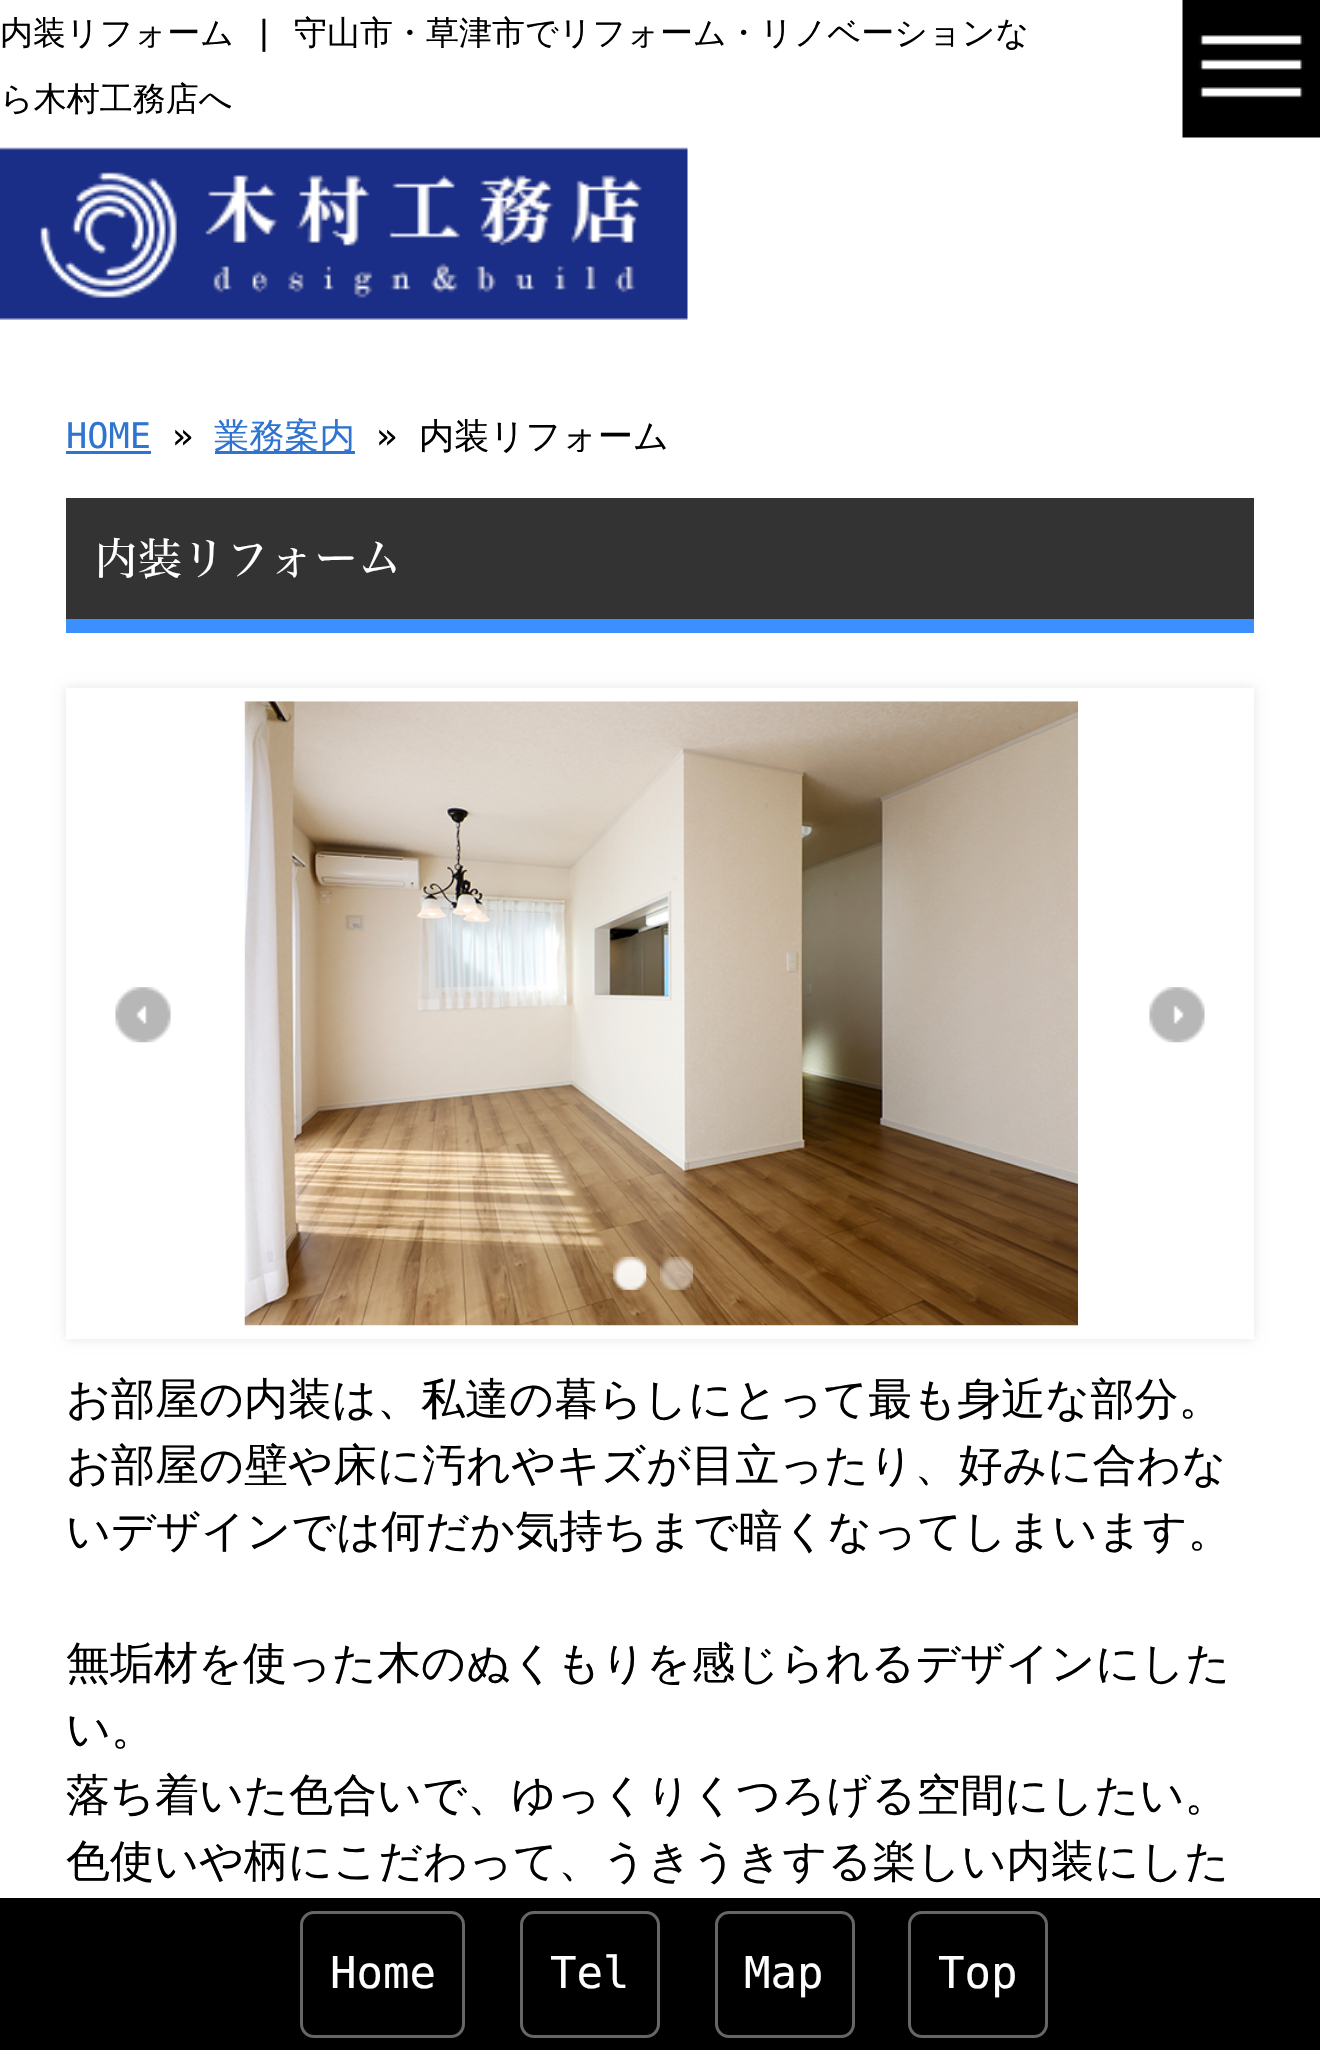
#include "include/core/SkBlurTypes.h"
#include "include/core/SkCanvas.h"
#include "include/core/SkData.h"
#include "include/core/SkFont.h"
#include "include/core/SkFontMgr.h"
#include "include/core/SkImage.h"
#include "include/core/SkMaskFilter.h"
#include "include/core/SkPaint.h"
#include "include/core/SkPathBuilder.h"
#include "include/core/SkTextBlob.h"
#include "include/effects/SkDashPathEffect.h"
#include "include/effects/SkGradientShader.h"
#include "include/utils/SkParsePath.h"

extern sk_sp<SkFontMgr> fontMgr;

void draw(SkCanvas* canvas) {
  SkPaint p;
  p.setAntiAlias(true);
  canvas->clear(SK_ColorWHITE);
  canvas->drawImageRect(SkImages::DeferredFromEncodedData(SkData::MakeFromFileName("images/1.png")), SkRect::MakeLTRB(0, 147, 688, 320), SkSamplingOptions());
  canvas->drawImageRect(SkImages::DeferredFromEncodedData(SkData::MakeFromFileName("images/2.png")), SkRect::MakeLTRB(1182, 0, 1320, 138), SkSamplingOptions());
  p.setColor(SkColorSetRGB(47, 116, 208));
  canvas->drawRect(SkRect::MakeLTRB(66, 451, 151, 454), p);
  canvas->drawRect(SkRect::MakeLTRB(215, 451, 355, 454), p);
  p.setColor(SkColorSetRGB(51, 51, 51));
  canvas->drawRect(SkRect::MakeLTRB(66, 498, 1254, 619), p);
  p.setColor(SkColorSetRGB(60, 143, 255));
  canvas->drawRect(SkRect::MakeLTRB(66, 619, 1254, 633), p);
  canvas->save();
  canvas->clipPath(SkPathBuilder(SkPathFillType::kEvenOdd).moveTo(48, 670).lineTo(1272, 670).lineTo(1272, 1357).lineTo(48, 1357).close().moveTo(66, 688).lineTo(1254, 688).lineTo(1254, 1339).lineTo(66, 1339).close().detach(), true);
  p.setColor(SkColorSetARGB(26, 0, 0, 0));
  p.setMaskFilter(SkMaskFilter::MakeBlur(kNormal_SkBlurStyle, 5.5f));
  canvas->drawRect(SkRect::MakeLTRB(66, 688, 1254, 1339), p);
  p.setMaskFilter(nullptr);
  canvas->restore();
  canvas->drawImageRect(SkImages::DeferredFromEncodedData(SkData::MakeFromFileName("images/3.png")), SkRect::MakeLTRB(244, 701, 1078, 1326), SkSamplingOptions());
  canvas->drawImageRect(SkImages::DeferredFromEncodedData(SkData::MakeFromFileName("images/4.png")), SkRect::MakeLTRB(115, 987, 171, 1043), SkSamplingOptions());
  canvas->drawImageRect(SkImages::DeferredFromEncodedData(SkData::MakeFromFileName("images/5.png")), SkRect::MakeLTRB(1149, 987, 1205, 1043), SkSamplingOptions());
  canvas->drawImageRect(SkImages::DeferredFromEncodedData(SkData::MakeFromFileName("images/6.png")), SkRect::MakeLTRB(613, 1256, 647, 1290), SkSamplingOptions());
  canvas->drawImageRect(SkImages::DeferredFromEncodedData(SkData::MakeFromFileName("images/7.png")), SkRect::MakeLTRB(660, 1256, 693, 1290), SkSamplingOptions());
  p.setColor(SK_ColorBLACK);
  canvas->drawRect(SkRect::MakeLTRB(0, 1898, 1320, 2050), p);
  p.setStyle(SkPaint::kStroke_Style);
  p.setStrokeWidth(3);
  p.setColor(SkColorSetRGB(102, 102, 102));
  canvas->drawRoundRect(SkRect::MakeLTRB(301.5f, 1912.5f, 463.5f, 2036.5f), 12.5f, 12.5f, p);
  canvas->drawRoundRect(SkRect::MakeLTRB(521.5f, 1912.5f, 658.5f, 2036.5f), 12.5f, 12.5f, p);
  canvas->drawRoundRect(SkRect::MakeLTRB(716.5f, 1912.5f, 853.5f, 2036.5f), 12.5f, 12.5f, p);
  canvas->drawRoundRect(SkRect::MakeLTRB(909.5f, 1912.5f, 1046.5f, 2036.5f), 12.5f, 12.5f, p);
  SkFont font1(fontMgr->matchFamilyStyle("WenQuanYi Zen Hei", SkFontStyle(500, SkFontStyle::kNormal_Width, SkFontStyle::kUpright_Slant)), 33);
  font1.setSubpixel(true);
  p.setStyle(SkPaint::kFill_Style);
  p.setColor(SK_ColorBLACK);
  canvas->drawString("内装リフォーム", 0, 44, font1, p);
  SkFont font2(fontMgr->matchFamilyStyle("DejaVu Sans Mono", SkFontStyle::Normal()), 33);
  font2.setSubpixel(true);
  canvas->drawString("|", 254, 44, font2, p);
  canvas->drawString("守山市・草津市でリフォーム・リノベーションな", 294, 44, font1, p);
  canvas->drawString("ら木村工務店へ", 0, 110, font1, p);
  SkFont font3(fontMgr->matchFamilyStyle("DejaVu Sans Mono", SkFontStyle::Normal()), 35.25f);
  font3.setSubpixel(true);
  p.setColor(SkColorSetRGB(47, 116, 208));
  canvas->drawString("HOME", 66, 448, font3, p);
  p.setColor(SK_ColorBLACK);
  canvas->drawString("»", 172, 448, font3, p);
  SkFont font4(fontMgr->matchFamilyStyle("WenQuanYi Zen Hei", SkFontStyle(500, SkFontStyle::kNormal_Width, SkFontStyle::kUpright_Slant)), 35.25f);
  font4.setSubpixel(true);
  p.setColor(SkColorSetRGB(47, 116, 208));
  canvas->drawString("業務案内", 214, 448, font4, p);
  p.setColor(SK_ColorBLACK);
  canvas->drawString("»", 376, 448, font3, p);
  canvas->drawString("内装リフォーム", 419, 448, font4, p);
  SkFont font5(fontMgr->matchFamilyStyle("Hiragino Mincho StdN", SkFontStyle::Normal()), 44);
  font5.setSubpixel(true);
  p.setColor(SK_ColorWHITE);
  canvas->drawString("内装リフォーム", 94, 575, font5, p);
  SkFont font6(fontMgr->matchFamilyStyle("WenQuanYi Zen Hei", SkFontStyle(500, SkFontStyle::kNormal_Width, SkFontStyle::kUpright_Slant)), 44);
  font6.setSubpixel(true);
  p.setColor(SK_ColorBLACK);
  canvas->drawString("お部屋の内装は、私達の暮らしにとって最も身近な部分。", 66, 1414, font6, p);
  canvas->drawString("お部屋の壁や床に汚れやキズが目立ったり、好みに合わな", 66, 1480, font6, p);
  canvas->drawString("いデザインでは何だか気持ちまで暗くなってしまいます。", 66, 1546, font6, p);
  canvas->drawString("無垢材を使った木のぬくもりを感じられるデザインにした", 66, 1678, font6, p);
  canvas->drawString("い。", 66, 1744, font6, p);
  canvas->drawString("落ち着いた色合いで、ゆっくりくつろげる空間にしたい。", 66, 1810, font6, p);
  canvas->drawString("色使いや柄にこだわって、うきうきする楽しい内装にした", 66, 1876, font6, p);
  SkFont font7(fontMgr->matchFamilyStyle("DejaVu Sans Mono", SkFontStyle::Normal()), 44);
  font7.setSubpixel(true);
  p.setColor(SK_ColorWHITE);
  canvas->drawString("Home", 330, 1988, font7, p);
  canvas->drawString("Tel", 550, 1988, font7, p);
  canvas->drawString("Map", 744, 1988, font7, p);
  canvas->drawString("Top", 938, 1988, font7, p);
}
